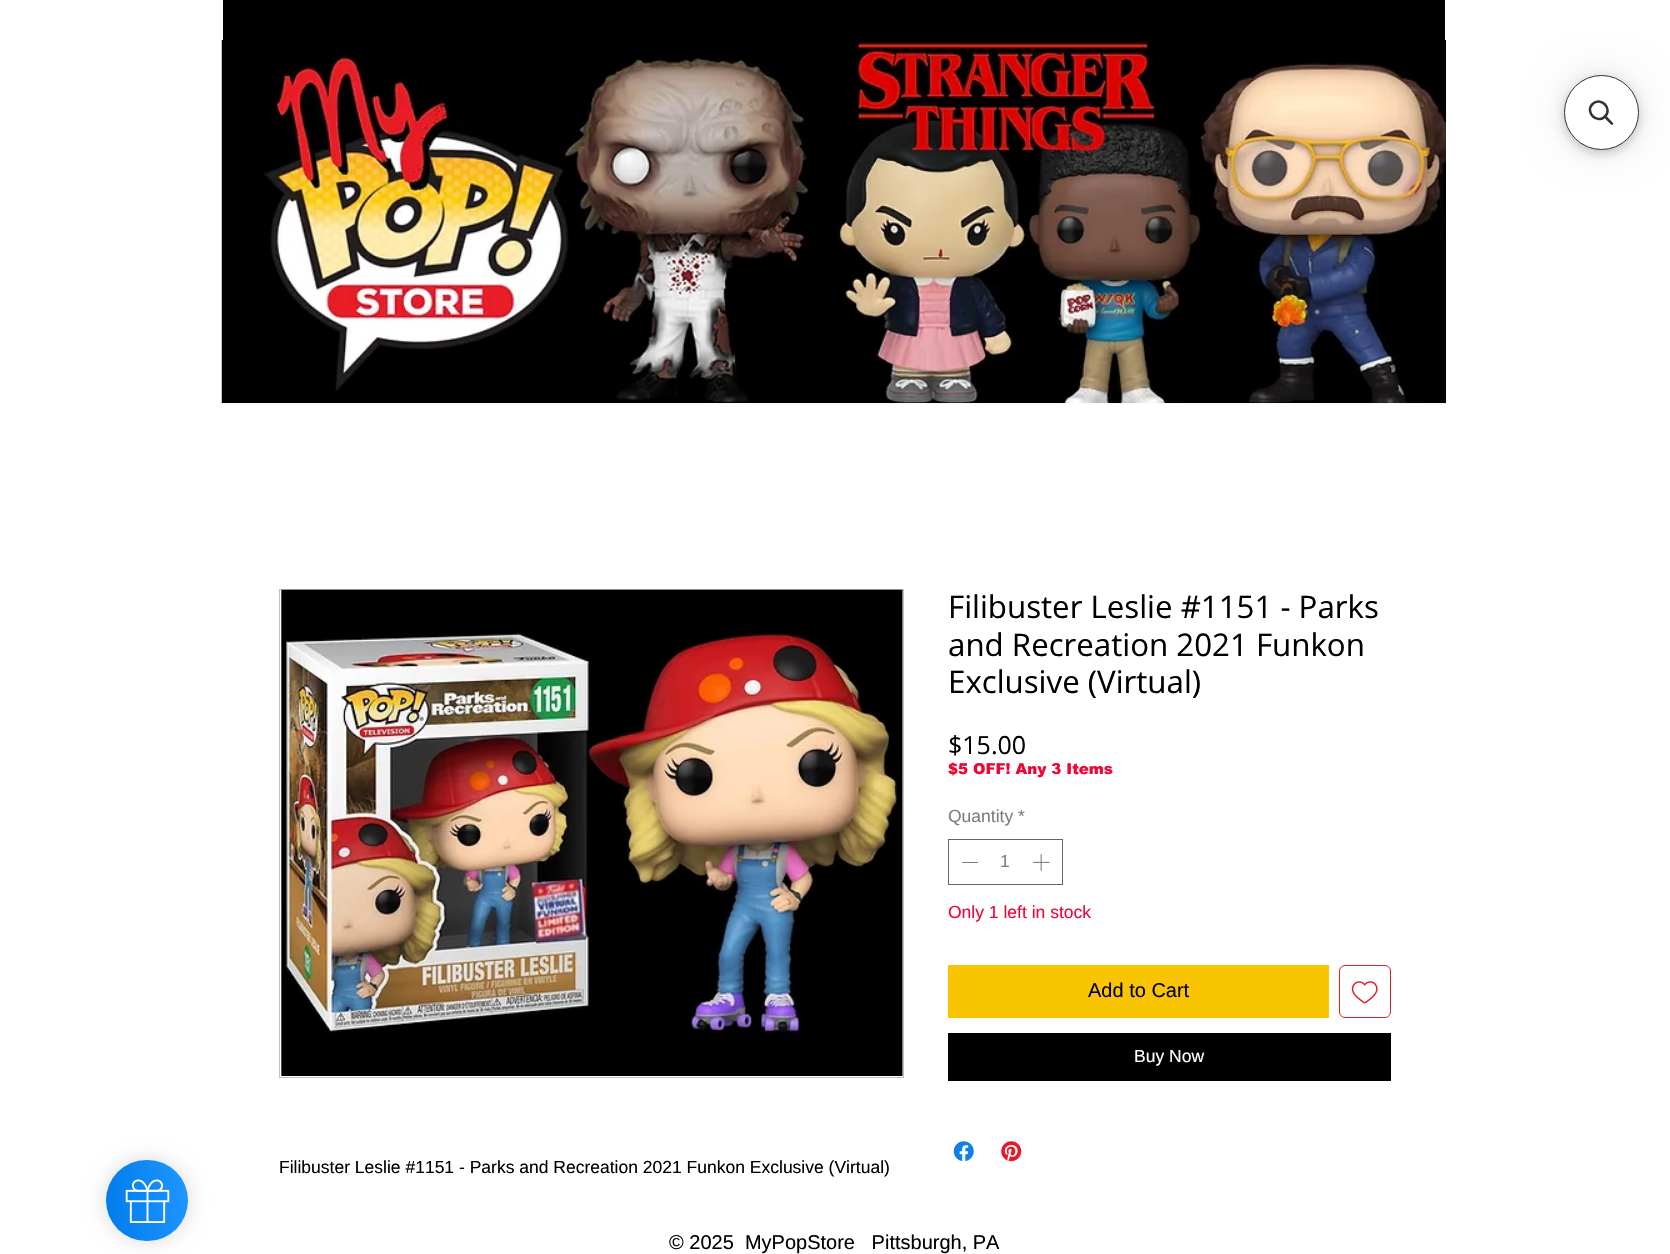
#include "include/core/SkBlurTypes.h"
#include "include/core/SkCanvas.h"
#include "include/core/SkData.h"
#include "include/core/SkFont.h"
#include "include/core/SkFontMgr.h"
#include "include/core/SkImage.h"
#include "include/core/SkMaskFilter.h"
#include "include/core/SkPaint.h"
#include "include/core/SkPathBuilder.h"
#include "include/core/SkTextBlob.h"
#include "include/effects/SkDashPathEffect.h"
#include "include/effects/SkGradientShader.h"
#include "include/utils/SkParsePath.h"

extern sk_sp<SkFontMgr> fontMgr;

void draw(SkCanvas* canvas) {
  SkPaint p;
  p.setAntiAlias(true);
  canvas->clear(SK_ColorWHITE);
  p.setColor(SkColorSetARGB(13, 0, 0, 0));
  p.setMaskFilter(SkMaskFilter::MakeBlur(kNormal_SkBlurStyle, 5));
  canvas->drawRoundRect(SkRect::MakeLTRB(1564, 80, 1639, 155), 37.5f, 37.5f, p);
  p.setMaskFilter(nullptr);
  p.setColor(SkColorSetARGB(38, 0, 0, 0));
  p.setMaskFilter(SkMaskFilter::MakeBlur(kNormal_SkBlurStyle, 5));
  canvas->drawRoundRect(SkRect::MakeLTRB(1564, 78, 1639, 153), 37.5f, 37.5f, p);
  p.setMaskFilter(nullptr);
  p.setColor(SkColorSetARGB(26, 0, 0, 0));
  p.setMaskFilter(SkMaskFilter::MakeBlur(kNormal_SkBlurStyle, 19));
  canvas->drawRoundRect(SkRect::MakeLTRB(1564, 75, 1639, 150), 37.5f, 37.5f, p);
  p.setMaskFilter(nullptr);
  p.setColor(SK_ColorWHITE);
  canvas->drawCircle(1601.5f, 112.5f, 37, p);
  p.setStyle(SkPaint::kStroke_Style);
  p.setStrokeWidth(1);
  p.setColor(SkColorSetRGB(51, 51, 51));
  canvas->drawCircle(1601.5f, 112.5f, 37, p);
  p.setStrokeWidth(2.5f);
  canvas->drawPath(SkPathBuilder().moveTo(1592.5f, 104).cubicTo(1600.5f, 96, 1613, 108.5f, 1605, 116.5f).cubicTo(1597, 124.5f, 1584.5f, 112, 1592.5f, 104).close().detach(), p);
  p.setStyle(SkPaint::kFill_Style);
  canvas->drawPath(SkPathBuilder().moveTo(1604, 117.5f).lineTo(1606, 115.5f).lineTo(1613, 123).cubicTo(1614, 124, 1612, 125.5f, 1611, 124.5f).close().detach(), p);
  p.setColor(SkColorSetARGB(38, 0, 0, 0));
  p.setMaskFilter(SkMaskFilter::MakeBlur(kNormal_SkBlurStyle, 10));
  canvas->drawRoundRect(SkRect::MakeLTRB(106, 1160, 188, 1241), 40.5f, 40.5f, p);
  p.setMaskFilter(nullptr);
  {
    const SkColor colors[] = {SkColorSetRGB(30, 149, 255), SkColorSetRGB(0, 124, 234)};
    const float stops[] = {0.05f, 0.97f};
    const SkPoint ends[] = {{191, 1196}, {102, 1206}};
    p.setShader(SkGradientShader::MakeLinear(ends, colors, stops, 2, SkTileMode::kClamp));
    p.setAlpha(255);
  }
  canvas->drawRoundRect(SkRect::MakeLTRB(106, 1160, 188, 1241), 40.5f, 40.5f, p);
  canvas->drawImageRect(SkImages::DeferredFromEncodedData(SkData::MakeFromFileName("images/1.png")), SkRect::MakeLTRB(125, 1179, 170, 1223), SkSamplingOptions());
  p.setShader(nullptr);
  p.setColor(SK_ColorBLACK);
  canvas->drawRect(SkRect::MakeLTRB(223, 0, 1445, 40), p);
  canvas->drawImageRect(SkImages::DeferredFromEncodedData(SkData::MakeFromFileName("images/2.png")), SkRect::MakeLTRB(221, 40, 1446, 404), SkSamplingOptions());
  p.setStyle(SkPaint::kStroke_Style);
  p.setStrokeWidth(1);
  p.setColor(SkColorSetRGB(102, 102, 102));
  canvas->drawRect(SkRect::MakeLTRB(948.5f, 839.5f, 1062.5f, 884.5f), p);
  p.setStyle(SkPaint::kFill_Style);
  p.setColor(SkColorSetRGB(125, 125, 125));
  canvas->drawRect(SkRect::MakeLTRB(962, 862, 978, 863), p);
  canvas->drawImageRect(SkImages::DeferredFromEncodedData(SkData::MakeFromFileName("images/3.png")), SkRect::MakeLTRB(1033, 854, 1050, 871), SkSamplingOptions());
  p.setColor(SkColorSetRGB(249, 196, 2));
  canvas->drawRect(SkRect::MakeLTRB(948, 965, 1329, 1018), p);
  p.setStyle(SkPaint::kStroke_Style);
  p.setColor(SkColorSetRGB(226, 28, 33));
  canvas->drawRoundRect(SkRect::MakeLTRB(1339.5f, 965.5f, 1390.5f, 1017.5f), 5.5f, 5.5f, p);
  canvas->drawImageRect(SkImages::DeferredFromEncodedData(SkData::MakeFromFileName("images/4.png")), SkRect::MakeLTRB(1351, 981, 1378, 1004), SkSamplingOptions());
  p.setStyle(SkPaint::kFill_Style);
  p.setColor(SK_ColorBLACK);
  canvas->drawRect(SkRect::MakeLTRB(948, 1033, 1391, 1081), p);
  canvas->drawImageRect(SkImages::DeferredFromEncodedData(SkData::MakeFromFileName("images/5.png")), SkRect::MakeLTRB(953, 1141, 974, 1162), SkSamplingOptions());
  canvas->drawImageRect(SkImages::DeferredFromEncodedData(SkData::MakeFromFileName("images/6.png")), SkRect::MakeLTRB(1001, 1141, 1022, 1162), SkSamplingOptions());
  p.setStyle(SkPaint::kStroke_Style);
  p.setColor(SkColorSetRGB(192, 192, 192));
  canvas->drawRect(SkRect::MakeLTRB(279.5f, 589.5f, 903.5f, 1077.5f), p);
  canvas->drawImageRect(SkImages::DeferredFromEncodedData(SkData::MakeFromFileName("images/7.png")), SkRect::MakeLTRB(281, 589, 903, 1076), SkSamplingOptions());
  SkFont font1(fontMgr->matchFamilyStyle("Open Sans", SkFontStyle::Normal()), 31.25f);
  font1.setSubpixel(true);
  p.setStyle(SkPaint::kFill_Style);
  p.setColor(SK_ColorBLACK);
  canvas->drawString("Filibuster Leslie #1151 - Parks", 948, 618, font1, p);
  canvas->drawString("and Recreation 2021 Funkon", 948, 656, font1, p);
  canvas->drawString("Exclusive (Virtual)", 948, 693, font1, p);
  SkFont font2(fontMgr->matchFamilyStyle("Open Sans", SkFontStyle::Normal()), 25);
  font2.setSubpixel(true);
  canvas->drawString("$15.00", 948, 754, font2, p);
  SkFont font3(fontMgr->matchFamilyStyle("arial", SkFontStyle(900, SkFontStyle::kNormal_Width, SkFontStyle::kUpright_Slant)), 15);
  font3.setSubpixel(true);
  p.setColor(SkColorSetRGB(240, 5, 52));
  canvas->drawString("$5 OFF! Any 3 Items", 948, 774, font3, p);
  SkFont font4(fontMgr->matchFamilyStyle("Liberation Sans", SkFontStyle::Normal()), 17.5f);
  font4.setSubpixel(true);
  p.setColor(SkColorSetRGB(125, 125, 125));
  canvas->drawString("Quantity *", 948, 822, font4, p);
  canvas->drawString("1", 1000, 867, font4, p);
  p.setColor(SkColorSetRGB(240, 5, 52));
  canvas->drawString("Only 1 left in stock", 948, 918, font4, p);
  SkFont font5(fontMgr->matchFamilyStyle("Liberation Sans", SkFontStyle::Normal()), 20);
  font5.setSubpixel(true);
  p.setColor(SK_ColorBLACK);
  canvas->drawString("Add to Cart", 1088, 997, font5, p);
  p.setColor(SK_ColorWHITE);
  canvas->drawString("Buy Now", 1134, 1062, font4, p);
  p.setColor(SK_ColorBLACK);
  canvas->drawString("Filibuster Leslie #1151 - Parks and Recreation 2021 Funkon Exclusive (Virtual)", 279, 1173, font4, p);
  canvas->drawString("© 2025  MyPopStore   Pittsburgh, PA", 669, 1249, font5, p);
}
